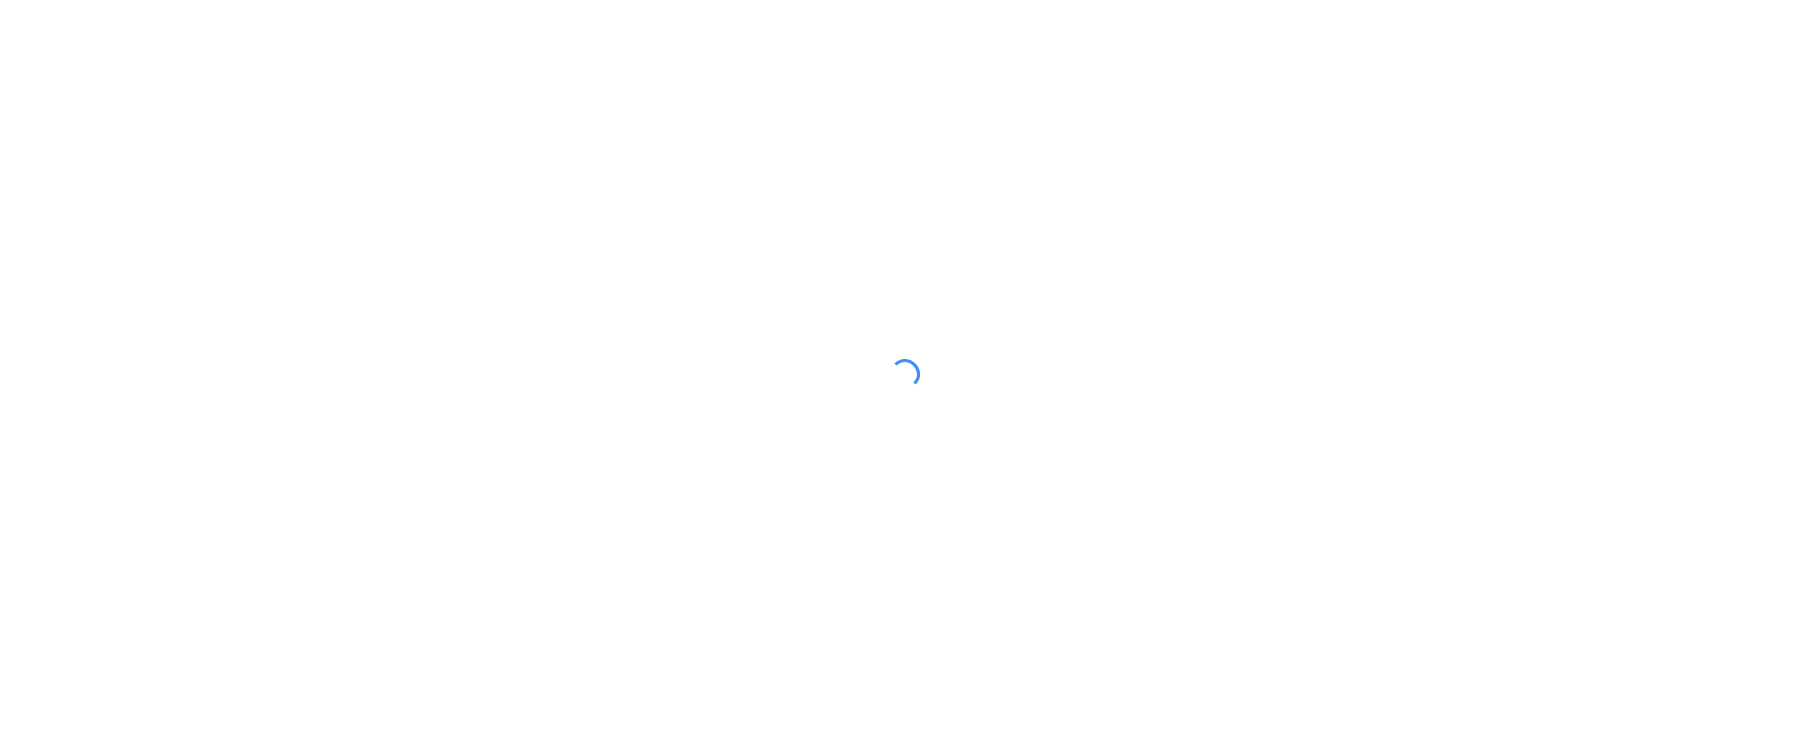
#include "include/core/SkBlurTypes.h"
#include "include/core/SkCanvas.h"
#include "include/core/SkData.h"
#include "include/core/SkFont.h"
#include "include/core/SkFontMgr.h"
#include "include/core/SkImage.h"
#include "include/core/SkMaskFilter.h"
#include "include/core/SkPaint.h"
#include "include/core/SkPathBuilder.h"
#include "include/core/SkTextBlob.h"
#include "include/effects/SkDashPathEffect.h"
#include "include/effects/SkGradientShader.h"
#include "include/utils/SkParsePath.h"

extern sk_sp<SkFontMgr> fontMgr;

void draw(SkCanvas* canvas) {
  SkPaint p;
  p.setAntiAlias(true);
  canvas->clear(SK_ColorWHITE);
  p.setStyle(SkPaint::kStroke_Style);
  p.setStrokeWidth(3);
  p.setColor(SkColorSetRGB(57, 143, 252));
  canvas->drawPath(SkPathBuilder().moveTo(895.5f, 364.5f).cubicTo(908, 352, 927, 371, 914.5f, 383.5f).detach(), p);
}
